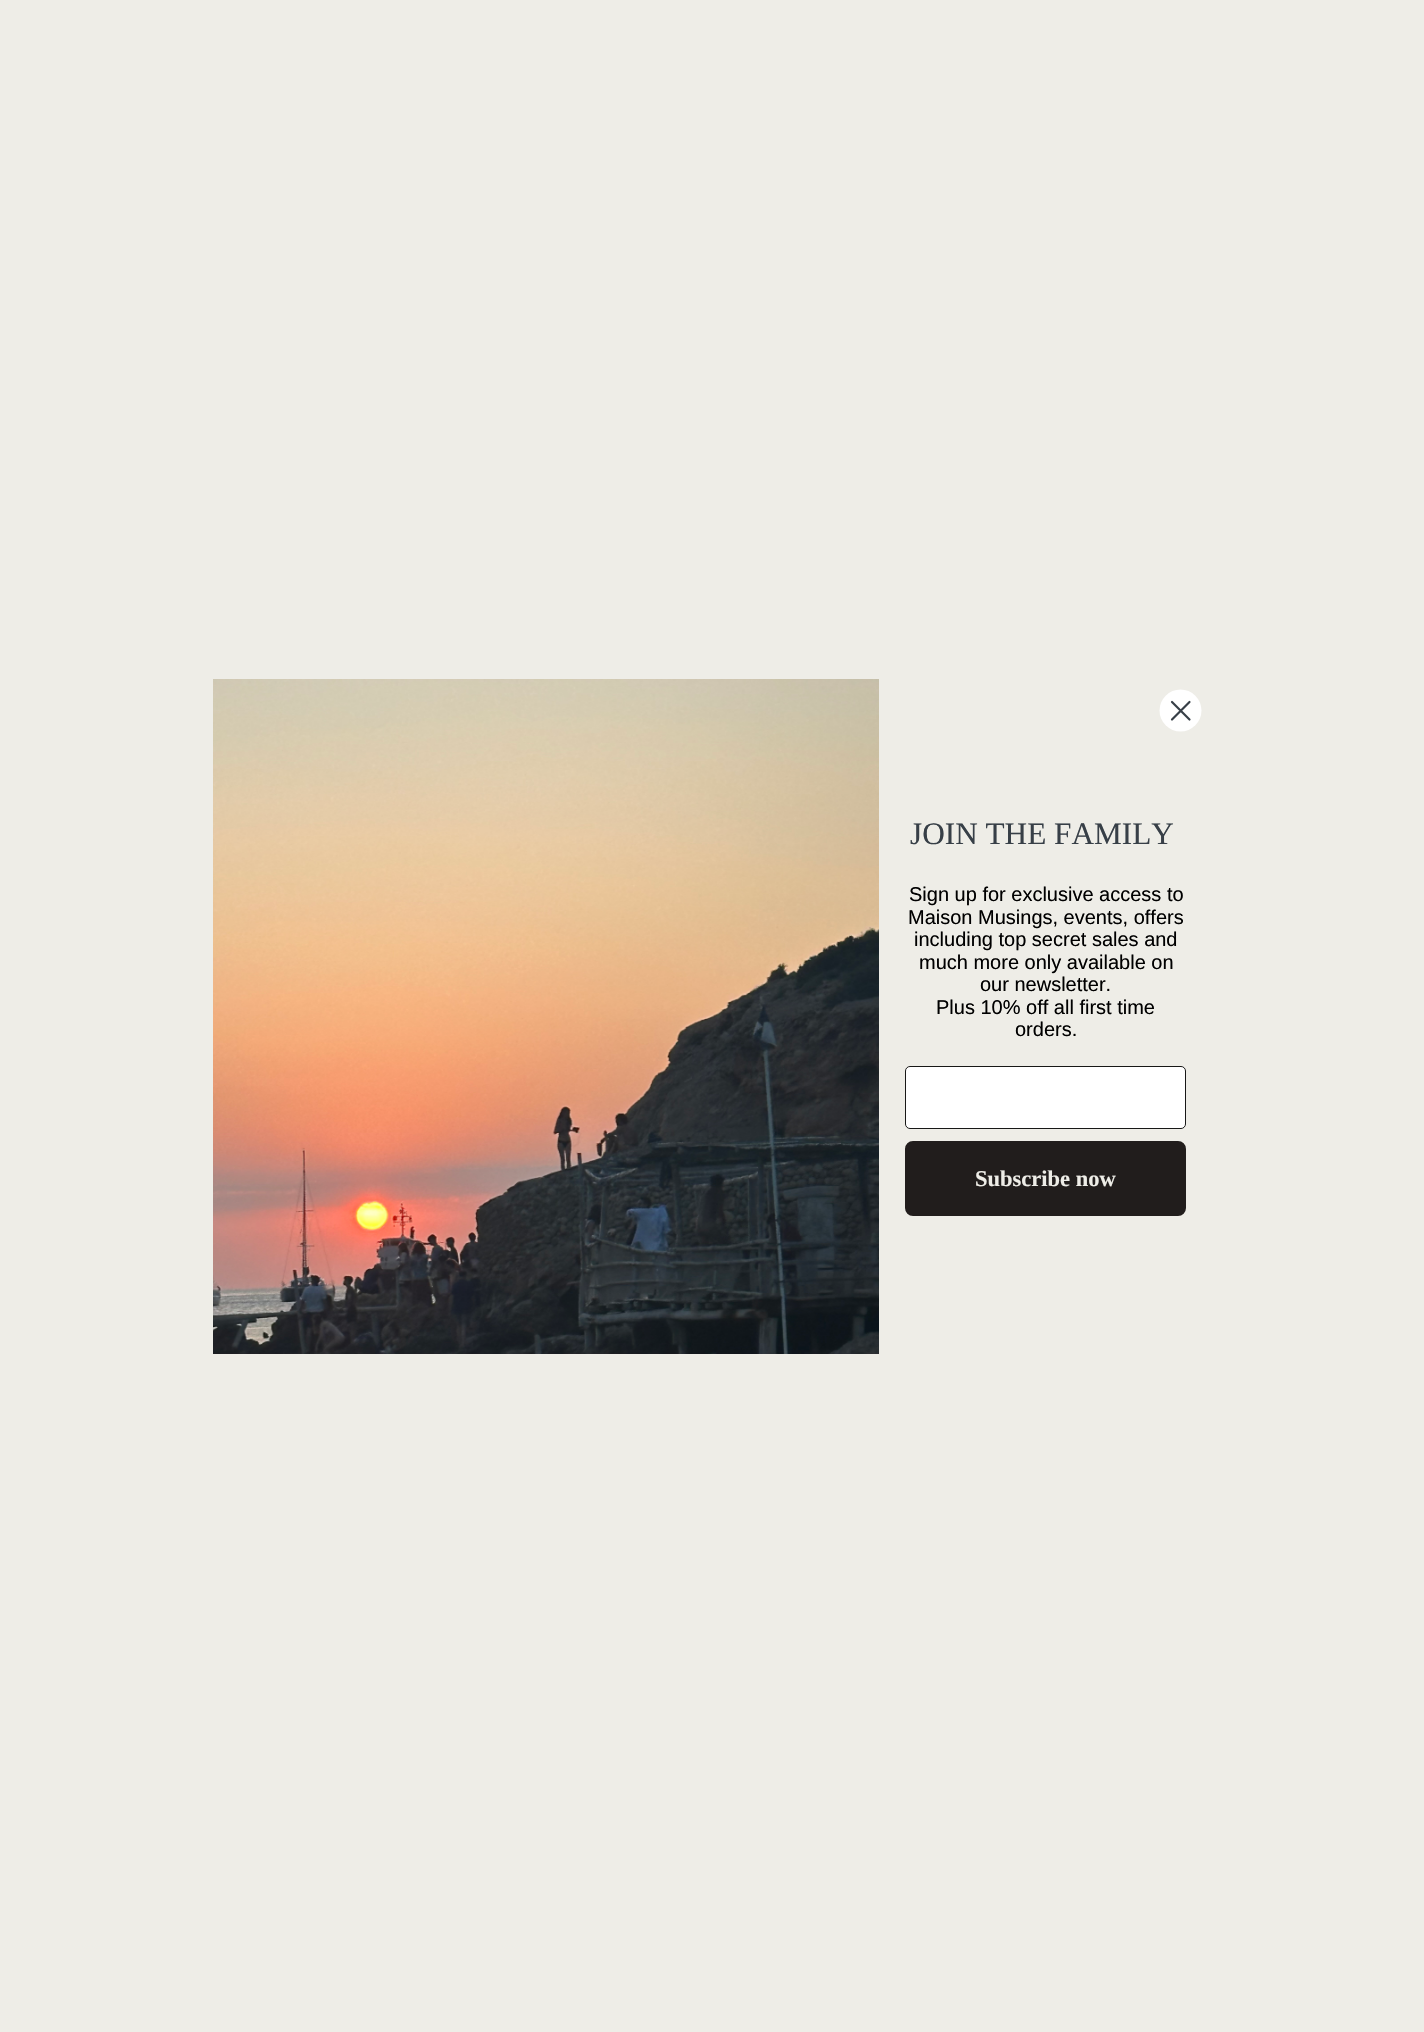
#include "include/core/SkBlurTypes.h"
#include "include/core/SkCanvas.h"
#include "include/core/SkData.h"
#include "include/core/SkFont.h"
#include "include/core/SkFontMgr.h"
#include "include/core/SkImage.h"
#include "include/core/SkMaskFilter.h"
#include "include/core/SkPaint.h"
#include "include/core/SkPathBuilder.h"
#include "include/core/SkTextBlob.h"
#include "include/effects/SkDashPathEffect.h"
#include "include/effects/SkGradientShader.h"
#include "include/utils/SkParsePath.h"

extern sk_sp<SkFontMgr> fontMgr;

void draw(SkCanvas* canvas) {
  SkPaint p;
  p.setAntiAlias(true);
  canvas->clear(SkColorSetRGB(238, 237, 231));
  p.setColor(SK_ColorWHITE);
  canvas->drawCircle(1180.5f, 710.5f, 21, p);
  p.setStyle(SkPaint::kStroke_Style);
  p.setStrokeWidth(2.2f);
  p.setStrokeCap(SkPaint::kRound_Cap);
  p.setStrokeJoin(SkPaint::kRound_Join);
  p.setColor(SkColorSetRGB(55, 63, 71));
  canvas->drawPath(SkPathBuilder().moveTo(1172, 702).lineTo(1189.5f, 719.5f).moveTo(1172, 719.5f).lineTo(1189.5f, 702).close().detach(), p);
  canvas->drawImageRect(SkImages::DeferredFromEncodedData(SkData::MakeFromFileName("images/1.png")), SkRect::MakeLTRB(213, 679, 879, 1354), SkSamplingOptions());
  p.setStyle(SkPaint::kFill_Style);
  p.setColor(SK_ColorWHITE);
  canvas->drawRoundRect(SkRect::MakeLTRB(905.5f, 1066.5f, 1185.5f, 1128.5f), 4.5f, 4.5f, p);
  p.setStyle(SkPaint::kStroke_Style);
  p.setStrokeWidth(1);
  p.setStrokeCap(SkPaint::kButt_Cap);
  p.setStrokeJoin(SkPaint::kMiter_Join);
  p.setColor(SkColorSetRGB(24, 24, 23));
  canvas->drawRoundRect(SkRect::MakeLTRB(905.5f, 1066.5f, 1185.5f, 1128.5f), 4.5f, 4.5f, p);
  p.setStyle(SkPaint::kFill_Style);
  p.setColor(SkColorSetRGB(33, 29, 28));
  canvas->drawRoundRect(SkRect::MakeLTRB(907, 1143, 1184, 1214), 6, 6, p);
  p.setStyle(SkPaint::kStroke_Style);
  p.setStrokeWidth(4);
  canvas->drawRoundRect(SkRect::MakeLTRB(907, 1143, 1184, 1214), 6, 6, p);
  SkFont font1(fontMgr->matchFamilyStyle("Liberation Serif", SkFontStyle::Normal()), 31.25f);
  font1.setSubpixel(true);
  p.setStyle(SkPaint::kFill_Style);
  p.setColor(SkColorSetRGB(55, 63, 71));
  canvas->drawString("JOIN THE FAMILY", 910, 844, font1, p);
  SkFont font2(fontMgr->matchFamilyStyle("Liberation Sans", SkFontStyle::Normal()), 20);
  font2.setSubpixel(true);
  p.setColor(SK_ColorBLACK);
  canvas->drawString("Sign up for exclusive access to", 909, 901, font2, p);
  canvas->drawString("Maison Musings, events, offers", 908, 924, font2, p);
  canvas->drawString("including top secret sales and", 914, 946, font2, p);
  canvas->drawString("much more only available on", 919, 969, font2, p);
  canvas->drawString("our newsletter.", 980, 991, font2, p);
  canvas->drawString("Plus 10% off all first time", 936, 1014, font2, p);
  canvas->drawString("orders.", 1015, 1036, font2, p);
  SkFont font3(fontMgr->matchFamilyStyle("Liberation Serif", SkFontStyle::Bold()), 22.5f);
  font3.setSubpixel(true);
  p.setColor(SkColorSetRGB(238, 237, 231));
  canvas->drawString("Subscribe now", 975, 1186, font3, p);
}
